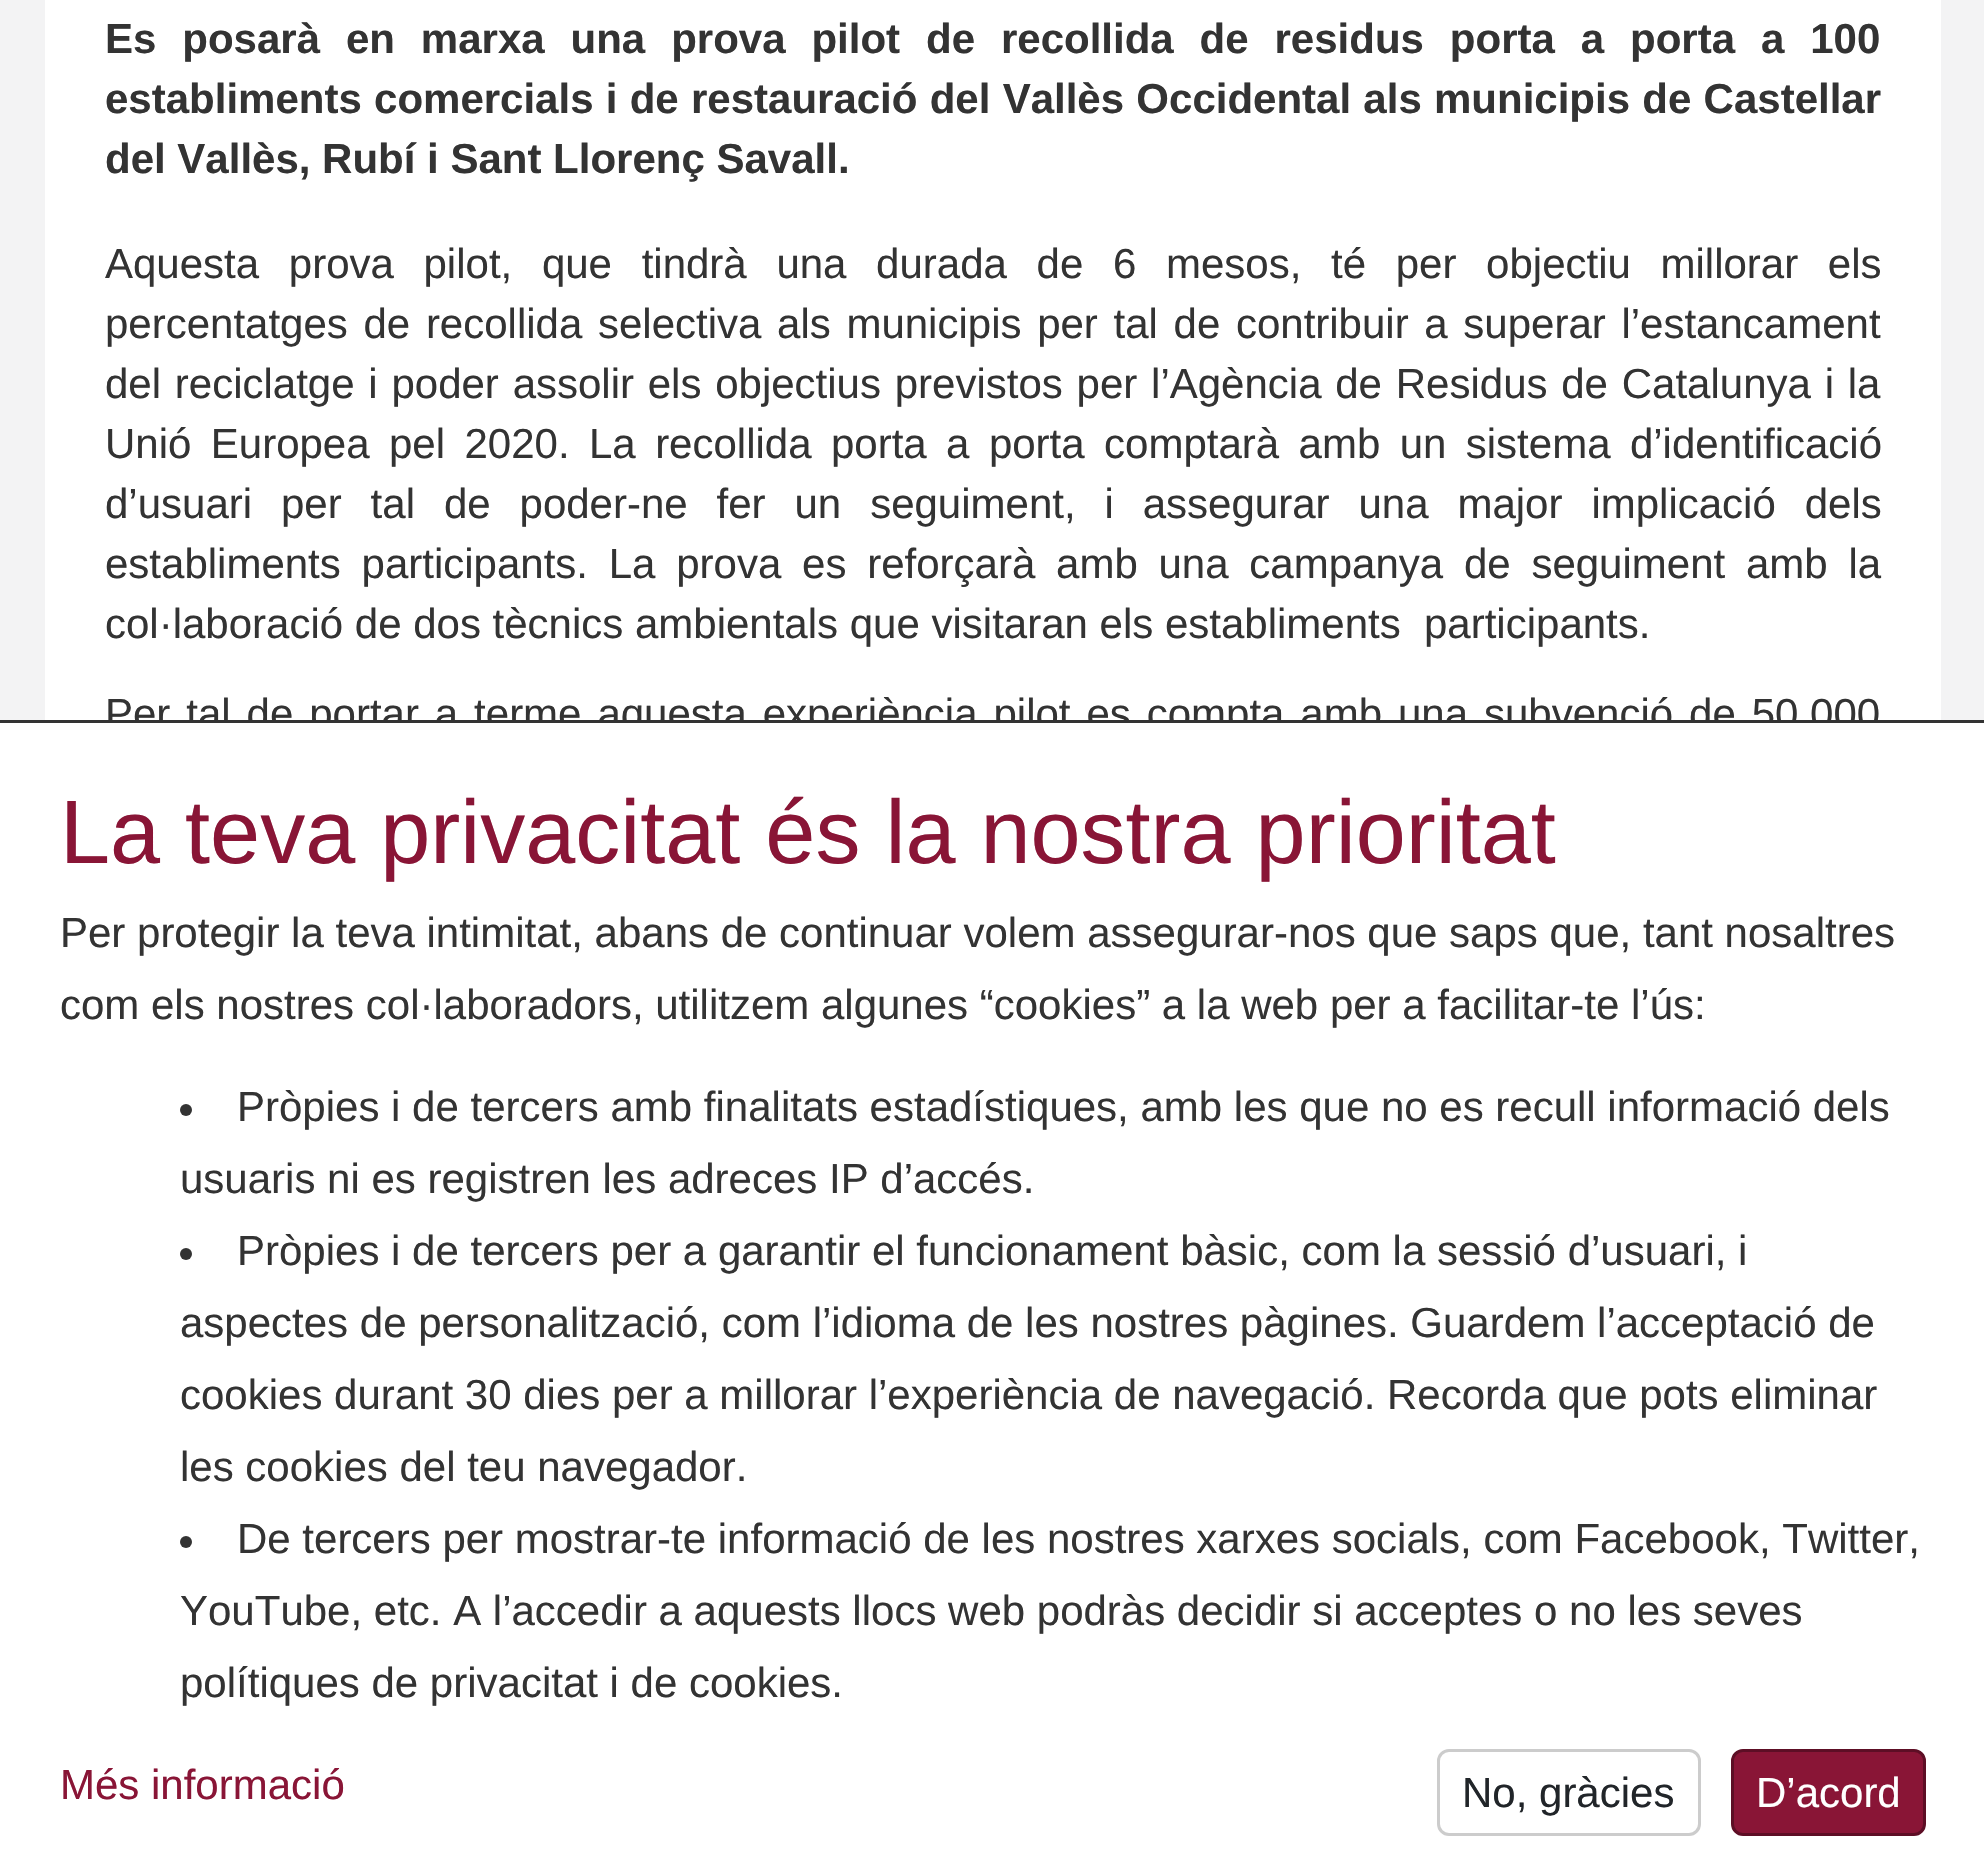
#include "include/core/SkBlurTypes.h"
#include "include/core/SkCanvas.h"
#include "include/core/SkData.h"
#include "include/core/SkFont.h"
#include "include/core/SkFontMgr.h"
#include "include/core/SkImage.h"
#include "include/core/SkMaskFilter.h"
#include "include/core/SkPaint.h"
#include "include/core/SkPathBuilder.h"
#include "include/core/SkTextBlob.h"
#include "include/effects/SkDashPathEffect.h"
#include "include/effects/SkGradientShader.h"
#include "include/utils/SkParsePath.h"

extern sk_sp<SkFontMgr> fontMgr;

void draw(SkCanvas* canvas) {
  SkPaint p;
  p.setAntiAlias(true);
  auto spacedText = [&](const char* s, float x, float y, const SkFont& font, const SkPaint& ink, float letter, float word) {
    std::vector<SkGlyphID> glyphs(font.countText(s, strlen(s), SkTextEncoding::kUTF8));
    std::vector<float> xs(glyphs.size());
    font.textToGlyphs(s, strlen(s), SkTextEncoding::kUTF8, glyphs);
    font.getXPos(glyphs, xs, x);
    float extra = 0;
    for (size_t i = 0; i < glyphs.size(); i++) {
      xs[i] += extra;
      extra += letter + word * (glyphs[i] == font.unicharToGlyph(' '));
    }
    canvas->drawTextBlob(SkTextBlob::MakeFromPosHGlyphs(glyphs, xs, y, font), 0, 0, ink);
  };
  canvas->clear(SkColorSetRGB(243, 243, 244));
  p.setColor(SK_ColorWHITE);
  canvas->drawRect(SkRect::MakeLTRB(45, 0, 1941, 720), p);
  p.setColor(SkColorSetRGB(51, 51, 51));
  canvas->drawRect(SkRect::MakeLTRB(0, 720, 1984, 723), p);
  SkFont font1(fontMgr->matchFamilyStyle("Liberation Sans", SkFontStyle::Bold()), 42);
  font1.setSubpixel(true);
  spacedText("Es posarà en marxa una prova pilot de recollida de residus porta a porta a 100", 105, 53, font1, p, 0, 14.25f);
  spacedText("establiments comercials i de restauració del Vallès Occidental als municipis de Castellar", 105, 113, font1, p, 0, 0.6f);
  canvas->drawString("del Vallès, Rubí i Sant Llorenç Savall.", 105, 173, font1, p);
  SkFont font2(fontMgr->matchFamilyStyle("Liberation Sans", SkFontStyle::Normal()), 42);
  font2.setSubpixel(true);
  spacedText("Aquesta prova pilot, que tindrà una durada de 6 mesos, té per objectiu millorar els", 105, 278, font2, p, 0, 18);
  spacedText("percentatges de recollida selectiva als municipis per tal de contribuir a superar l’estancament", 105, 338, font2, p, 0, 4);
  spacedText("del reciclatge i poder assolir els objectius previstos per l’Agència de Residus de Catalunya i la", 105, 398, font2, p, 0, 2.1f);
  spacedText("Unió Europea pel 2020. La recollida porta a porta comptarà amb un sistema d’identificació", 105, 458, font2, p, 0, 7.75f);
  spacedText("d’usuari per tal de poder-ne fer un seguiment, i assegurar una major implicació dels", 105, 518, font2, p, 0, 17.25f);
  spacedText("establiments participants. La prova es reforçarà amb una campanya de seguiment amb la", 105, 578, font2, p, 0, 9.1f);
  canvas->drawString("col·laboració de dos tècnics ambientals que visitaran els establiments  participants.", 105, 638, font2, p);
  spacedText("Per tal de portar a terme aquesta experiència pilot es compta amb una subvenció de 50.000", 105, 728, font2, p, 0, 4.25f);
  p.setColor(SK_ColorWHITE);
  canvas->drawRect(SkRect::MakeLTRB(0, 723, 1984, 1864), p);
  SkFont font3(fontMgr->matchFamilyStyle("Liberation Sans", SkFontStyle::Normal()), 90);
  font3.setSubpixel(true);
  p.setColor(SkColorSetRGB(137, 21, 54));
  canvas->drawString("La teva privacitat és la nostra prioritat", 60, 863, font3, p);
  p.setColor(SkColorSetRGB(51, 51, 51));
  canvas->drawString("Per protegir la teva intimitat, abans de continuar volem assegurar-nos que saps que, tant nosaltres", 60, 947, font2, p);
  canvas->drawString("com els nostres col·laboradors, utilitzem algunes “cookies” a la web per a facilitar-te l’ús:", 60, 1019, font2, p);
  canvas->drawCircle(186, 1110, 6, p);
  canvas->drawString("Pròpies i de tercers amb finalitats estadístiques, amb les que no es recull informació dels", 237, 1121, font2, p);
  canvas->drawString("usuaris ni es registren les adreces IP d’accés.", 180, 1193, font2, p);
  canvas->drawCircle(186, 1254, 6, p);
  canvas->drawString("Pròpies i de tercers per a garantir el funcionament bàsic, com la sessió d’usuari, i", 237, 1265, font2, p);
  canvas->drawString("aspectes de personalització, com l’idioma de les nostres pàgines. Guardem l’acceptació de", 180, 1337, font2, p);
  canvas->drawString("cookies durant 30 dies per a millorar l’experiència de navegació. Recorda que pots eliminar", 180, 1409, font2, p);
  canvas->drawString("les cookies del teu navegador.", 180, 1481, font2, p);
  canvas->drawCircle(186, 1542, 6, p);
  canvas->drawString("De tercers per mostrar-te informació de les nostres xarxes socials, com Facebook, Twitter,", 237, 1553, font2, p);
  canvas->drawString("YouTube, etc. A l’accedir a aquests llocs web podràs decidir si acceptes o no les seves", 180, 1625, font2, p);
  canvas->drawString("polítiques de privacitat i de cookies.", 180, 1697, font2, p);
  p.setColor(SkColorSetRGB(137, 21, 54));
  canvas->drawString("Més informació", 60, 1799, font2, p);
  p.setStyle(SkPaint::kStroke_Style);
  p.setStrokeWidth(3);
  p.setColor(SkColorSetRGB(204, 204, 204));
  canvas->drawRoundRect(SkRect::MakeLTRB(1438.5f, 1750.5f, 1699.5f, 1834.5f), 10.5f, 10.5f, p);
  p.setStyle(SkPaint::kFill_Style);
  p.setColor(SkColorSetRGB(33, 37, 41));
  canvas->drawString("No, gràcies", 1462, 1807, font2, p);
  p.setColor(SkColorSetRGB(137, 21, 54));
  canvas->drawRoundRect(SkRect::MakeLTRB(1732.5f, 1750.5f, 1924.5f, 1834.5f), 10.5f, 10.5f, p);
  p.setStyle(SkPaint::kStroke_Style);
  p.setColor(SkColorSetRGB(93, 14, 37));
  canvas->drawRoundRect(SkRect::MakeLTRB(1732.5f, 1750.5f, 1924.5f, 1834.5f), 10.5f, 10.5f, p);
  p.setStyle(SkPaint::kFill_Style);
  p.setColor(SK_ColorWHITE);
  canvas->drawString("D’acord", 1756, 1807, font2, p);
}
